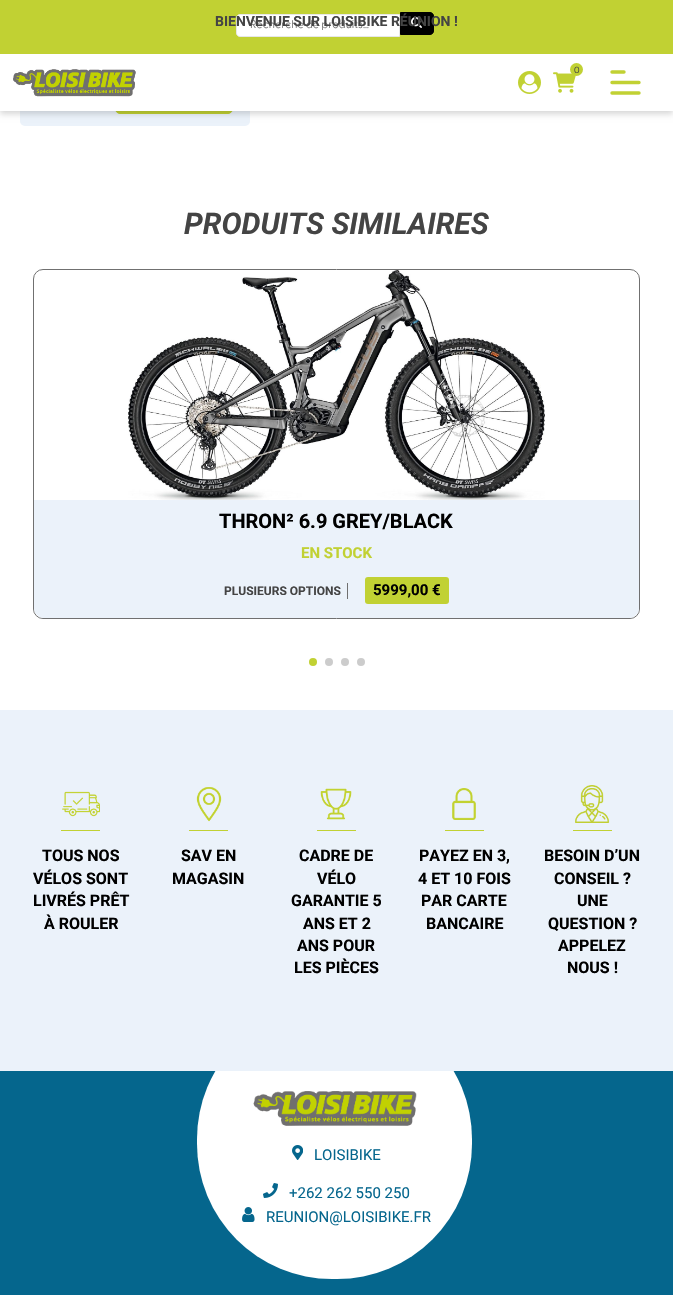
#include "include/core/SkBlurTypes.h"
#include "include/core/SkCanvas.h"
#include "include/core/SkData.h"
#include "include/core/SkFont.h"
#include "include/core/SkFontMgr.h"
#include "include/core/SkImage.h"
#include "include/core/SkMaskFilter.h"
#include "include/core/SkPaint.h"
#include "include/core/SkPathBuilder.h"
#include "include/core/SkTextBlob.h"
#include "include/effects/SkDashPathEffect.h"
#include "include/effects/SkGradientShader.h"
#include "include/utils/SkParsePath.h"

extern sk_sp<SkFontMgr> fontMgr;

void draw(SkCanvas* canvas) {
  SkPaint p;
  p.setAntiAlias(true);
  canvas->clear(SK_ColorWHITE);
  p.setColor(SkColorSetRGB(235, 242, 250));
  canvas->drawRoundRect(SkRect::MakeLTRB(20, 66, 250, 126), 5, 5, p);
  p.setColor(SkColorSetRGB(193, 209, 51));
  canvas->drawRoundRect(SkRect::MakeLTRB(115.5f, 78.5f, 232.5f, 113.5f), 4.5f, 4.5f, p);
  p.setStyle(SkPaint::kStroke_Style);
  p.setStrokeWidth(1);
  canvas->drawRoundRect(SkRect::MakeLTRB(115.5f, 78.5f, 232.5f, 113.5f), 4.5f, 4.5f, p);
  p.setStyle(SkPaint::kFill_Style);
  p.setColor(SkColorSetARGB(41, 0, 0, 0));
  p.setMaskFilter(SkMaskFilter::MakeBlur(kNormal_SkBlurStyle, 3));
  canvas->drawRect(SkRect::MakeLTRB(0, 3, 673, 114), p);
  p.setMaskFilter(nullptr);
  p.setColor(SK_ColorWHITE);
  canvas->drawRect(SkRect::MakeLTRB(0, 54, 673, 111), p);
  p.setColor(SkColorSetRGB(193, 209, 51));
  canvas->drawRect(SkRect::MakeLTRB(0, 0, 673, 54), p);
  p.setColor(SK_ColorWHITE);
  canvas->drawPath(SkPathBuilder().moveTo(240, 14.5f).lineTo(399.5f, 14.5f).lineTo(399.5f, 36.5f).lineTo(240, 36.5f).cubicTo(238, 36.5f, 236.5f, 35, 236.5f, 33).lineTo(236.5f, 18).cubicTo(236.5f, 16, 238, 14.5f, 240, 14.5f).close().detach(), p);
  p.setStyle(SkPaint::kStroke_Style);
  p.setColor(SkColorSetRGB(231, 231, 231));
  canvas->drawPath(SkPathBuilder().moveTo(240, 14.5f).lineTo(399.5f, 14.5f).lineTo(399.5f, 36.5f).lineTo(240, 36.5f).cubicTo(238, 36.5f, 236.5f, 35, 236.5f, 33).lineTo(236.5f, 18).cubicTo(236.5f, 16, 238, 14.5f, 240, 14.5f).close().detach(), p);
  p.setStyle(SkPaint::kFill_Style);
  p.setColor(SK_ColorBLACK);
  canvas->drawPath(SkPathBuilder().moveTo(400.5f, 12.5f).lineTo(430, 12.5f).cubicTo(432, 12.5f, 433.5f, 14, 433.5f, 16).lineTo(433.5f, 31).cubicTo(433.5f, 33, 432, 34.5f, 430, 34.5f).lineTo(400.5f, 34.5f).close().detach(), p);
  p.setStyle(SkPaint::kStroke_Style);
  canvas->drawPath(SkPathBuilder().moveTo(400.5f, 12.5f).lineTo(430, 12.5f).cubicTo(432, 12.5f, 433.5f, 14, 433.5f, 16).lineTo(433.5f, 31).cubicTo(433.5f, 33, 432, 34.5f, 430, 34.5f).lineTo(400.5f, 34.5f).close().detach(), p);
  canvas->drawImageRect(SkImages::DeferredFromEncodedData(SkData::MakeFromFileName("images/1.png")), SkRect::MakeLTRB(411, 17, 422, 28), SkSamplingOptions());
  canvas->drawImageRect(SkImages::DeferredFromEncodedData(SkData::MakeFromFileName("images/2.png")), SkRect::MakeLTRB(13, 69, 136, 97), SkSamplingOptions());
  canvas->drawImageRect(SkImages::DeferredFromEncodedData(SkData::MakeFromFileName("images/4.png")), SkRect::MakeLTRB(553, 72, 576, 93), SkSamplingOptions());
  p.setStyle(SkPaint::kFill_Style);
  p.setColor(SkColorSetRGB(193, 209, 51));
  canvas->drawCircle(576.5f, 69.5f, 6.5f, p);
  canvas->drawImageRect(SkImages::DeferredFromEncodedData(SkData::MakeFromFileName("images/3.png")), SkRect::MakeLTRB(518, 71, 541, 94), SkSamplingOptions());
  p.setStyle(SkPaint::kStroke_Style);
  p.setStrokeWidth(3.4f);
  p.setStrokeCap(SkPaint::kRound_Cap);
  p.setStrokeJoin(SkPaint::kRound_Join);
  canvas->drawPath(SkPathBuilder().moveTo(639, 93).lineTo(612, 93).moveTo(639, 82.5f).lineTo(612, 82.5f).moveTo(624, 72).lineTo(612, 72).detach(), p);
  p.setStrokeWidth(1);
  p.setStrokeCap(SkPaint::kButt_Cap);
  p.setStrokeJoin(SkPaint::kMiter_Join);
  p.setColor(SkColorSetRGB(112, 112, 112));
  canvas->drawRoundRect(SkRect::MakeLTRB(33.5f, 269.5f, 639.5f, 618.5f), 9.5f, 9.5f, p);
  canvas->drawImageRect(SkImages::DeferredFromEncodedData(SkData::MakeFromFileName("images/5.png")), SkRect::MakeLTRB(128, 270, 545, 500), SkSamplingOptions());
  p.setStyle(SkPaint::kFill_Style);
  p.setColor(SkColorSetRGB(235, 242, 250));
  canvas->drawPath(SkPathBuilder().moveTo(34, 500).lineTo(639, 500).lineTo(639, 608).cubicTo(639, 613.5f, 634.5f, 618, 629, 618).lineTo(44, 618).cubicTo(38.5f, 618, 34, 613.5f, 34, 608).close().detach(), p);
  p.setColor(SkColorSetRGB(112, 112, 112));
  canvas->drawRect(SkRect::MakeLTRB(347, 583, 348, 599), p);
  p.setColor(SkColorSetRGB(193, 209, 51));
  canvas->drawRoundRect(SkRect::MakeLTRB(365, 577, 449, 604), 3, 3, p);
  canvas->drawCircle(313, 662, 4, p);
  p.setColor(SkColorSetRGB(204, 204, 204));
  canvas->drawCircle(329, 662, 4, p);
  canvas->drawCircle(345, 662, 4, p);
  canvas->drawCircle(361, 662, 4, p);
  p.setColor(SkColorSetRGB(235, 242, 250));
  canvas->drawRect(SkRect::MakeLTRB(0, 710, 673, 1071), p);
  canvas->drawImageRect(SkImages::DeferredFromEncodedData(SkData::MakeFromFileName("images/6.png")), SkRect::MakeLTRB(62, 791, 100, 817), SkSamplingOptions());
  p.setColor(SkColorSetRGB(193, 209, 51));
  canvas->drawRect(SkRect::MakeLTRB(61, 830, 100, 831), p);
  canvas->drawImageRect(SkImages::DeferredFromEncodedData(SkData::MakeFromFileName("images/7.png")), SkRect::MakeLTRB(196, 787, 222, 822), SkSamplingOptions());
  canvas->drawRect(SkRect::MakeLTRB(189, 830, 228, 831), p);
  canvas->drawImageRect(SkImages::DeferredFromEncodedData(SkData::MakeFromFileName("images/8.png")), SkRect::MakeLTRB(320, 788, 352, 820), SkSamplingOptions());
  canvas->drawRect(SkRect::MakeLTRB(317, 830, 356, 831), p);
  canvas->drawImageRect(SkImages::DeferredFromEncodedData(SkData::MakeFromFileName("images/9.png")), SkRect::MakeLTRB(452, 788, 476, 820), SkSamplingOptions());
  canvas->drawRect(SkRect::MakeLTRB(445, 830, 484, 831), p);
  canvas->drawImageRect(SkImages::DeferredFromEncodedData(SkData::MakeFromFileName("images/10.png")), SkRect::MakeLTRB(575, 785, 610, 823), SkSamplingOptions());
  canvas->drawRect(SkRect::MakeLTRB(573, 830, 612, 831), p);
  p.setColor(SkColorSetRGB(5, 102, 141));
  canvas->drawRect(SkRect::MakeLTRB(0, 1071, 673, 1295), p);
  canvas->save();
  canvas->clipRect(SkRect::MakeLTRB(0, 1071, 673, 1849));
  p.setColor(SK_ColorWHITE);
  canvas->drawRoundRect(SkRect::MakeLTRB(197, 1004, 472, 1279), 135, 135, p);
  canvas->restore();
  canvas->drawImageRect(SkImages::DeferredFromEncodedData(SkData::MakeFromFileName("images/11.png")), SkRect::MakeLTRB(253, 1091, 417, 1126), SkSamplingOptions());
  canvas->drawImageRect(SkImages::DeferredFromEncodedData(SkData::MakeFromFileName("images/12.png")), SkRect::MakeLTRB(292, 1145, 303, 1160), SkSamplingOptions());
  canvas->drawImageRect(SkImages::DeferredFromEncodedData(SkData::MakeFromFileName("images/13.png")), SkRect::MakeLTRB(263, 1183, 278, 1198), SkSamplingOptions());
  canvas->drawImageRect(SkImages::DeferredFromEncodedData(SkData::MakeFromFileName("images/14.png")), SkRect::MakeLTRB(242, 1207, 255, 1222), SkSamplingOptions());
  SkFont font1(fontMgr->matchFamilyStyle("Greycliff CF", SkFontStyle::Normal()), 11);
  font1.setSubpixel(true);
  p.setColor(SkColorSetRGB(117, 117, 117));
  canvas->drawString("Recherche de produits…", 250, 28, font1, p);
  SkFont font2(fontMgr->matchFamilyStyle("Roboto", SkFontStyle::Bold()), 14);
  font2.setSubpixel(true);
  p.setColor(SkColorSetRGB(68, 68, 68));
  canvas->drawString("BIENVENUE SUR LOISIBIKE RÉUNION !", 215, 26, font2, p);
  SkFont font3(fontMgr->matchFamilyStyle("Greycliff CF", SkFontStyle::Normal()), 9);
  font3.setSubpixel(true);
  canvas->drawString("0", 574, 73, font3, p);
  SkFont font4(fontMgr->matchFamilyStyle("Roboto", SkFontStyle::BoldItalic()), 30);
  font4.setSubpixel(true);
  canvas->drawString("PRODUITS SIMILAIRES", 184, 234, font4, p);
  SkFont font5(fontMgr->matchFamilyStyle("Roboto", SkFontStyle::Bold()), 20);
  font5.setSubpixel(true);
  p.setColor(SK_ColorBLACK);
  canvas->drawString("THRON² 6.9 GREY/BLACK", 219, 528, font5, p);
  SkFont font6(fontMgr->matchFamilyStyle("Roboto", SkFontStyle::Bold()), 15);
  font6.setSubpixel(true);
  p.setColor(SkColorSetRGB(193, 209, 51));
  canvas->drawString("EN STOCK", 301, 558, font6, p);
  SkFont font7(fontMgr->matchFamilyStyle("Roboto", SkFontStyle::Bold()), 12);
  font7.setSubpixel(true);
  p.setColor(SkColorSetRGB(68, 68, 68));
  canvas->drawString("PLUSIEURS OPTIONS", 224, 595, font7, p);
  p.setColor(SK_ColorBLACK);
  canvas->drawString("5999,00 €", 373, 595, font6, p);
  SkFont font8(fontMgr->matchFamilyStyle("Roboto", SkFontStyle::Bold()), 16);
  font8.setSubpixel(true);
  canvas->drawString("TOUS NOS", 42, 861, font8, p);
  canvas->drawString("VÉLOS SONT", 33, 884, font8, p);
  canvas->drawString("LIVRÉS PRÊT", 33, 906, font8, p);
  canvas->drawString("À ROULER", 44, 929, font8, p);
  canvas->drawString("SAV EN", 181, 861, font8, p);
  canvas->drawString("MAGASIN", 172, 884, font8, p);
  canvas->drawString("CADRE DE", 299, 861, font8, p);
  canvas->drawString("VÉLO", 317, 884, font8, p);
  canvas->drawString("GARANTIE 5", 291, 906, font8, p);
  canvas->drawString("ANS ET 2", 303, 929, font8, p);
  canvas->drawString("ANS POUR", 297, 951, font8, p);
  canvas->drawString("LES PIÈCES", 294, 973, font8, p);
  canvas->drawString("PAYEZ EN 3,", 419, 861, font8, p);
  canvas->drawString("4 ET 10 FOIS", 418, 884, font8, p);
  canvas->drawString("PAR CARTE", 421, 906, font8, p);
  canvas->drawString("BANCAIRE", 426, 929, font8, p);
  canvas->drawString("BESOIN D’UN", 544, 861, font8, p);
  canvas->drawString("CONSEIL ?", 554, 884, font8, p);
  canvas->drawString("UNE", 577, 906, font8, p);
  canvas->drawString("QUESTION ?", 548, 929, font8, p);
  canvas->drawString("APPELEZ", 558, 951, font8, p);
  canvas->drawString("NOUS !", 567, 973, font8, p);
  SkFont font9(fontMgr->matchFamilyStyle("Roboto", SkFontStyle::Normal()), 15);
  font9.setSubpixel(true);
  p.setColor(SkColorSetRGB(5, 102, 141));
  canvas->drawString("LOISIBIKE", 314, 1160, font9, p);
  canvas->drawString("+262 262 550 250", 289, 1198, font9, p);
  canvas->drawString("REUNION@LOISIBIKE.FR", 266, 1222, font9, p);
}
